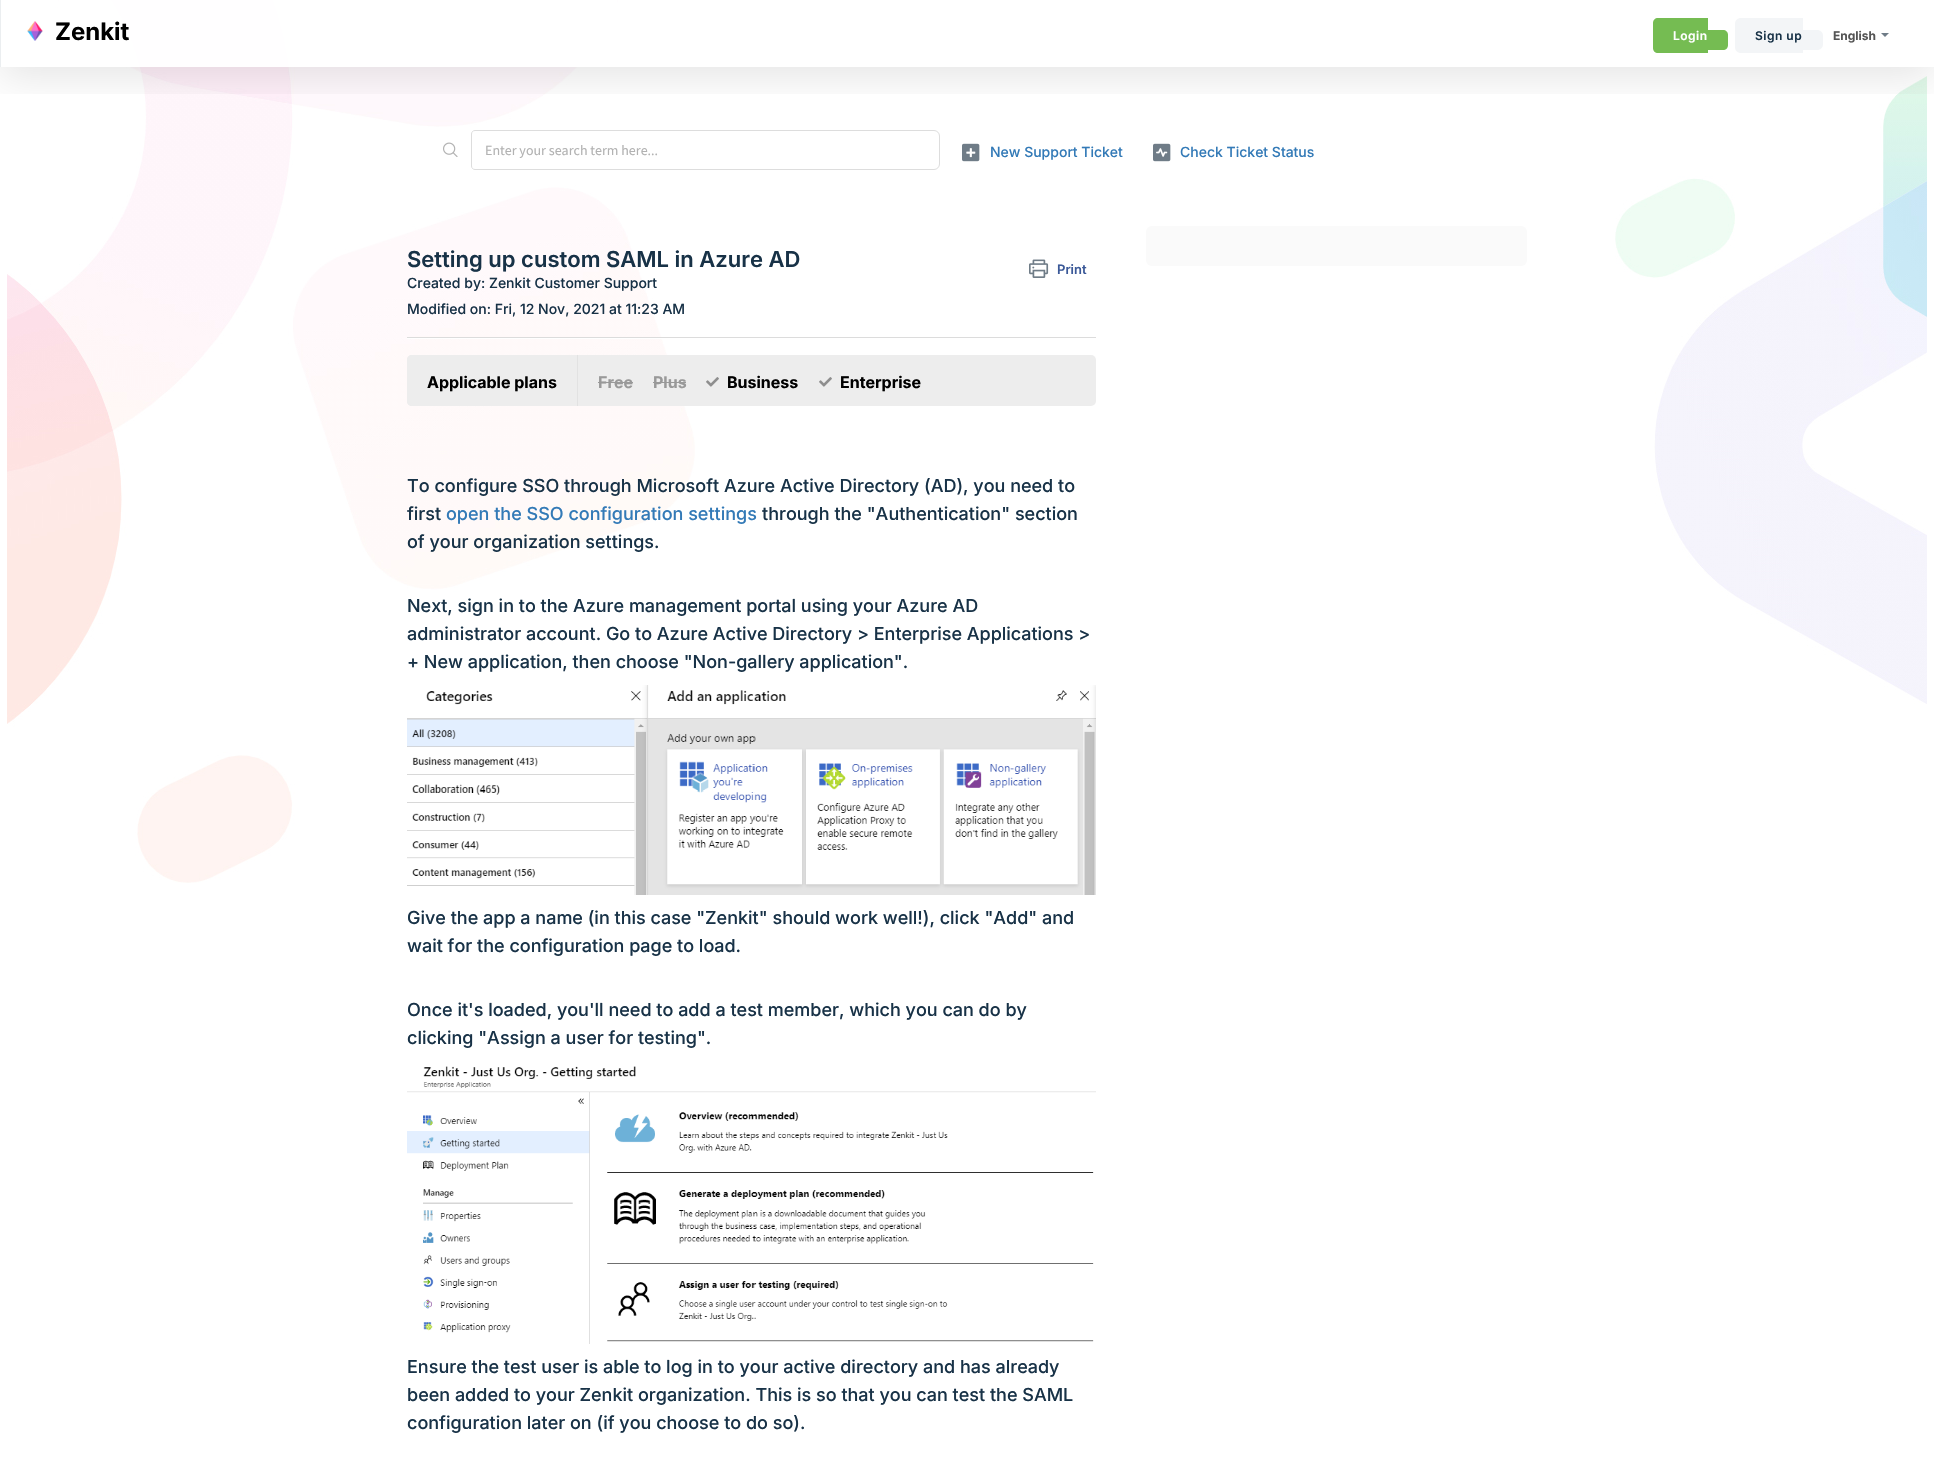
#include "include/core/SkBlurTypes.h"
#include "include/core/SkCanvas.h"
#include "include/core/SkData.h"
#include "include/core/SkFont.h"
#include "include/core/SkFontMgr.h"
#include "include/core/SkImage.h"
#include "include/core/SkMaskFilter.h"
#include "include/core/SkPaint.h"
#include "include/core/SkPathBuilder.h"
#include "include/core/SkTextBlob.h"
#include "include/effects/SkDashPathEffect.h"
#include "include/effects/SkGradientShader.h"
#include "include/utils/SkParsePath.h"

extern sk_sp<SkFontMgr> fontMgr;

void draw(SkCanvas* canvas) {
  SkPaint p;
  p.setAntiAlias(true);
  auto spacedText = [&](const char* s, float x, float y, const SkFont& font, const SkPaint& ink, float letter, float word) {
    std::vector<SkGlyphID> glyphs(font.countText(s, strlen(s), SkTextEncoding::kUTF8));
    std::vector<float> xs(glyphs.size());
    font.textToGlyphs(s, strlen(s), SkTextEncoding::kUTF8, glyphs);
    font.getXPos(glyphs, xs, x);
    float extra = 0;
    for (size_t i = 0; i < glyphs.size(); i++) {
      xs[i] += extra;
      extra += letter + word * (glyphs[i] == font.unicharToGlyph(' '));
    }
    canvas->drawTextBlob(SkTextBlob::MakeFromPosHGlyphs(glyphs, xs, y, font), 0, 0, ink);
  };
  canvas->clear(SK_ColorWHITE);
  canvas->drawImageRect(SkImages::DeferredFromEncodedData(SkData::MakeFromFileName("images/1.png")), SkRect::MakeLTRB(7, 0, 1927, 883), SkSamplingOptions());
  p.setStyle(SkPaint::kStroke_Style);
  p.setStrokeWidth(1);
  p.setColor(SkColorSetRGB(221, 221, 221));
  canvas->drawPath(SkPathBuilder().moveTo(475, 130.5f).lineTo(934, 130.5f).cubicTo(937, 130.5f, 939.5f, 133, 939.5f, 136).lineTo(939.5f, 164).cubicTo(939.5f, 167, 937, 169.5f, 934, 169.5f).lineTo(475, 169.5f).cubicTo(473, 169.5f, 471.5f, 168, 471.5f, 166).lineTo(471.5f, 134).cubicTo(471.5f, 132, 473, 130.5f, 475, 130.5f).close().detach(), p);
  canvas->save();
  canvas->clipRect(SkRect::MakeLTRB(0, 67, 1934, 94));
  p.setStyle(SkPaint::kFill_Style);
  p.setColor(SkColorSetARGB(26, 0, 0, 0));
  p.setMaskFilter(SkMaskFilter::MakeBlur(kNormal_SkBlurStyle, 20));
  canvas->drawRect(SkRect::MakeLTRB(0, 10, 1934, 77), p);
  p.setMaskFilter(nullptr);
  canvas->restore();
  p.setColor(SkColorSetARGB(230, 255, 255, 255));
  canvas->drawRect(SkRect::MakeLTRB(59, 0, 617, 67), p);
  p.setColor(SkColorSetRGB(235, 238, 240));
  canvas->drawRect(SkRect::MakeLTRB(0, 0, 1, 67), p);
  canvas->drawImageRect(SkImages::DeferredFromEncodedData(SkData::MakeFromFileName("images/2.png")), SkRect::MakeLTRB(27, 21, 43, 41), SkSamplingOptions());
  p.setColor(SkColorSetRGB(117, 188, 82));
  canvas->drawPath(SkPathBuilder().moveTo(1658, 18).lineTo(1708, 18).lineTo(1708, 53).lineTo(1658, 53).cubicTo(1655, 53, 1653, 51, 1653, 48).lineTo(1653, 23).cubicTo(1653, 20, 1655, 18, 1658, 18).close().detach(), p);
  canvas->drawPath(SkPathBuilder().moveTo(1708, 30).lineTo(1723, 30).cubicTo(1726, 30, 1728, 32, 1728, 35).lineTo(1728, 45).cubicTo(1728, 48, 1726, 50, 1723, 50).lineTo(1708, 50).close().detach(), p);
  p.setColor(SkColorSetRGB(243, 245, 247));
  canvas->drawPath(SkPathBuilder().moveTo(1741, 18).lineTo(1803, 18).lineTo(1803, 53).lineTo(1741, 53).cubicTo(1737.5f, 53, 1735, 50.5f, 1735, 47).lineTo(1735, 24).cubicTo(1735, 20.5f, 1737.5f, 18, 1741, 18).close().detach(), p);
  canvas->drawPath(SkPathBuilder().moveTo(1803, 30).lineTo(1817, 30).cubicTo(1820.5f, 30, 1823, 32.5f, 1823, 36).lineTo(1823, 44).cubicTo(1823, 47.5f, 1820.5f, 50, 1817, 50).lineTo(1803, 50).close().detach(), p);
  p.setColor(SkColorSetRGB(111, 124, 135));
  canvas->drawPath(SkPathBuilder().moveTo(1881, 33).lineTo(1889, 33).lineTo(1885, 37).close().detach(), p);
  canvas->drawImageRect(SkImages::DeferredFromEncodedData(SkData::MakeFromFileName("images/3.png")), SkRect::MakeLTRB(443, 142, 458, 157), SkSamplingOptions());
  canvas->drawImageRect(SkImages::DeferredFromEncodedData(SkData::MakeFromFileName("images/4.png")), SkRect::MakeLTRB(962, 143, 980, 162), SkSamplingOptions());
  canvas->drawImageRect(SkImages::DeferredFromEncodedData(SkData::MakeFromFileName("images/5.png")), SkRect::MakeLTRB(1153, 143, 1171, 162), SkSamplingOptions());
  p.setColor(SkColorSetRGB(250, 250, 250));
  canvas->drawRoundRect(SkRect::MakeLTRB(1146, 226, 1527, 266), 6, 6, p);
  canvas->drawImageRect(SkImages::DeferredFromEncodedData(SkData::MakeFromFileName("images/6.png")), SkRect::MakeLTRB(1029, 259, 1049, 278), SkSamplingOptions());
  p.setColor(SkColorSetRGB(220, 220, 220));
  canvas->drawRect(SkRect::MakeLTRB(407, 337, 1096, 338), p);
  p.setColor(SK_ColorWHITE);
  canvas->drawRect(SkRect::MakeLTRB(407, 338, 662, 339), p);
  p.setColor(SkColorSetRGB(237, 237, 237));
  canvas->drawRoundRect(SkRect::MakeLTRB(407, 355, 1096, 406), 5, 5, p);
  canvas->drawPath(SkPathBuilder().moveTo(412, 355).lineTo(578, 355).lineTo(578, 406).lineTo(412, 406).cubicTo(409, 406, 407, 404, 407, 401).lineTo(407, 360).cubicTo(407, 357, 409, 355, 412, 355).close().detach(), p);
  p.setColor(SkColorSetRGB(226, 226, 226));
  canvas->drawRect(SkRect::MakeLTRB(577, 355, 578, 406), p);
  p.setColor(SkColorSetRGB(153, 153, 153));
  canvas->drawRect(SkRect::MakeLTRB(598, 382, 633, 383), p);
  canvas->drawRect(SkRect::MakeLTRB(653, 382, 686, 383), p);
  canvas->drawImageRect(SkImages::DeferredFromEncodedData(SkData::MakeFromFileName("images/7.png")), SkRect::MakeLTRB(706, 377, 719, 387), SkSamplingOptions());
  canvas->drawImageRect(SkImages::DeferredFromEncodedData(SkData::MakeFromFileName("images/7.png")), SkRect::MakeLTRB(819, 377, 832, 387), SkSamplingOptions());
  canvas->drawImageRect(SkImages::DeferredFromEncodedData(SkData::MakeFromFileName("images/8.png")), SkRect::MakeLTRB(407, 685, 1096, 895), SkSamplingOptions());
  canvas->drawImageRect(SkImages::DeferredFromEncodedData(SkData::MakeFromFileName("images/9.png")), SkRect::MakeLTRB(407, 1066, 1096, 1344), SkSamplingOptions());
  SkFont font1(fontMgr->matchFamilyStyle("Inter", SkFontStyle::Bold()), 24);
  font1.setSubpixel(true);
  p.setColor(SK_ColorBLACK);
  canvas->drawString("Zenkit", 55, 40, font1, p);
  SkFont font2(fontMgr->matchFamilyStyle("Inter", SkFontStyle(600, SkFontStyle::kNormal_Width, SkFontStyle::kUpright_Slant)), 12);
  font2.setSubpixel(true);
  p.setColor(SK_ColorWHITE);
  spacedText("Login", 1673, 40, font2, p, 0.5f, 0);
  p.setColor(SkColorSetRGB(24, 50, 71));
  spacedText("Sign up", 1755, 40, font2, p, 0.5f, 0);
  SkFont font3(fontMgr->matchFamilyStyle("Inter", SkFontStyle::Bold()), 12);
  font3.setSubpixel(true);
  p.setColor(SkColorSetRGB(85, 85, 85));
  canvas->drawString("English", 1833, 40, font3, p);
  SkFont font4(fontMgr->matchFamilyStyle("Source Sans Pro", SkFontStyle::Normal()), 14);
  font4.setSubpixel(true);
  p.setColor(SkColorSetRGB(178, 178, 178));
  canvas->drawString("Enter your search term here...", 485, 155, font4, p);
  SkFont font5(fontMgr->matchFamilyStyle("Inter", SkFontStyle(500, SkFontStyle::kNormal_Width, SkFontStyle::kUpright_Slant)), 14);
  font5.setSubpixel(true);
  p.setColor(SkColorSetRGB(51, 122, 183));
  canvas->drawString("New Support Ticket", 990, 157, font5, p);
  canvas->drawString("Check Ticket Status", 1180, 157, font5, p);
  SkFont font6(fontMgr->matchFamilyStyle("Inter", SkFontStyle(600, SkFontStyle::kNormal_Width, SkFontStyle::kUpright_Slant)), 22);
  font6.setSubpixel(true);
  p.setColor(SkColorSetRGB(24, 50, 71));
  canvas->drawString("Setting up custom SAML in Azure AD", 407, 267, font6, p);
  SkFont font7(fontMgr->matchFamilyStyle("Inter", SkFontStyle(600, SkFontStyle::kNormal_Width, SkFontStyle::kUpright_Slant)), 13);
  font7.setSubpixel(true);
  p.setColor(SkColorSetRGB(59, 89, 152));
  canvas->drawString("Print", 1057, 274, font7, p);
  p.setColor(SkColorSetRGB(24, 50, 71));
  canvas->drawString("Created by: Zenkit Customer Support", 407, 288, font5, p);
  canvas->drawString("Modified on: Fri, 12 Nov, 2021 at 11:23 AM", 407, 314, font5, p);
  SkFont font8(fontMgr->matchFamilyStyle("Inter", SkFontStyle::Bold()), 16);
  font8.setSubpixel(true);
  p.setColor(SK_ColorBLACK);
  canvas->drawString("Applicable plans", 427, 388, font8, p);
  p.setColor(SkColorSetRGB(153, 153, 153));
  canvas->drawString("Free", 598, 388, font8, p);
  canvas->drawString("Plus", 653, 388, font8, p);
  p.setColor(SK_ColorBLACK);
  canvas->drawString("Business", 727, 388, font8, p);
  canvas->drawString("Enterprise", 840, 388, font8, p);
  SkFont font9(fontMgr->matchFamilyStyle("Inter", SkFontStyle(500, SkFontStyle::kNormal_Width, SkFontStyle::kUpright_Slant)), 18);
  font9.setSubpixel(true);
  p.setColor(SkColorSetRGB(24, 50, 71));
  canvas->drawString("To configure SSO through Microsoft Azure Active Directory (AD), you need to", 407, 492, font9, p);
  canvas->drawString("first", 407, 520, font9, p);
  p.setColor(SkColorSetRGB(51, 122, 183));
  canvas->drawString("open the SSO configuration settings", 446, 520, font9, p);
  p.setColor(SkColorSetRGB(24, 50, 71));
  canvas->drawString("through the \"Authentication\" section", 762, 520, font9, p);
  canvas->drawString("of your organization settings.", 407, 548, font9, p);
  canvas->drawString("Next, sign in to the Azure management portal using your Azure AD", 407, 612, font9, p);
  canvas->drawString("administrator account. Go to Azure Active Directory > Enterprise Applications >", 407, 640, font9, p);
  canvas->drawString("+ New application, then choose \"Non-gallery application\".", 407, 668, font9, p);
  canvas->drawString("Give the app a name (in this case \"Zenkit\" should work well!), click \"Add\" and", 407, 924, font9, p);
  canvas->drawString("wait for the configuration page to load.", 407, 952, font9, p);
  canvas->drawString("Once it's loaded, you'll need to add a test member, which you can do by", 407, 1016, font9, p);
  canvas->drawString("clicking \"Assign a user for testing\".", 407, 1044, font9, p);
  canvas->drawString("Ensure the test user is able to log in to your active directory and has already", 407, 1373, font9, p);
  canvas->drawString("been added to your Zenkit organization. This is so that you can test the SAML", 407, 1401, font9, p);
  canvas->drawString("configuration later on (if you choose to do so).", 407, 1429, font9, p);
}
